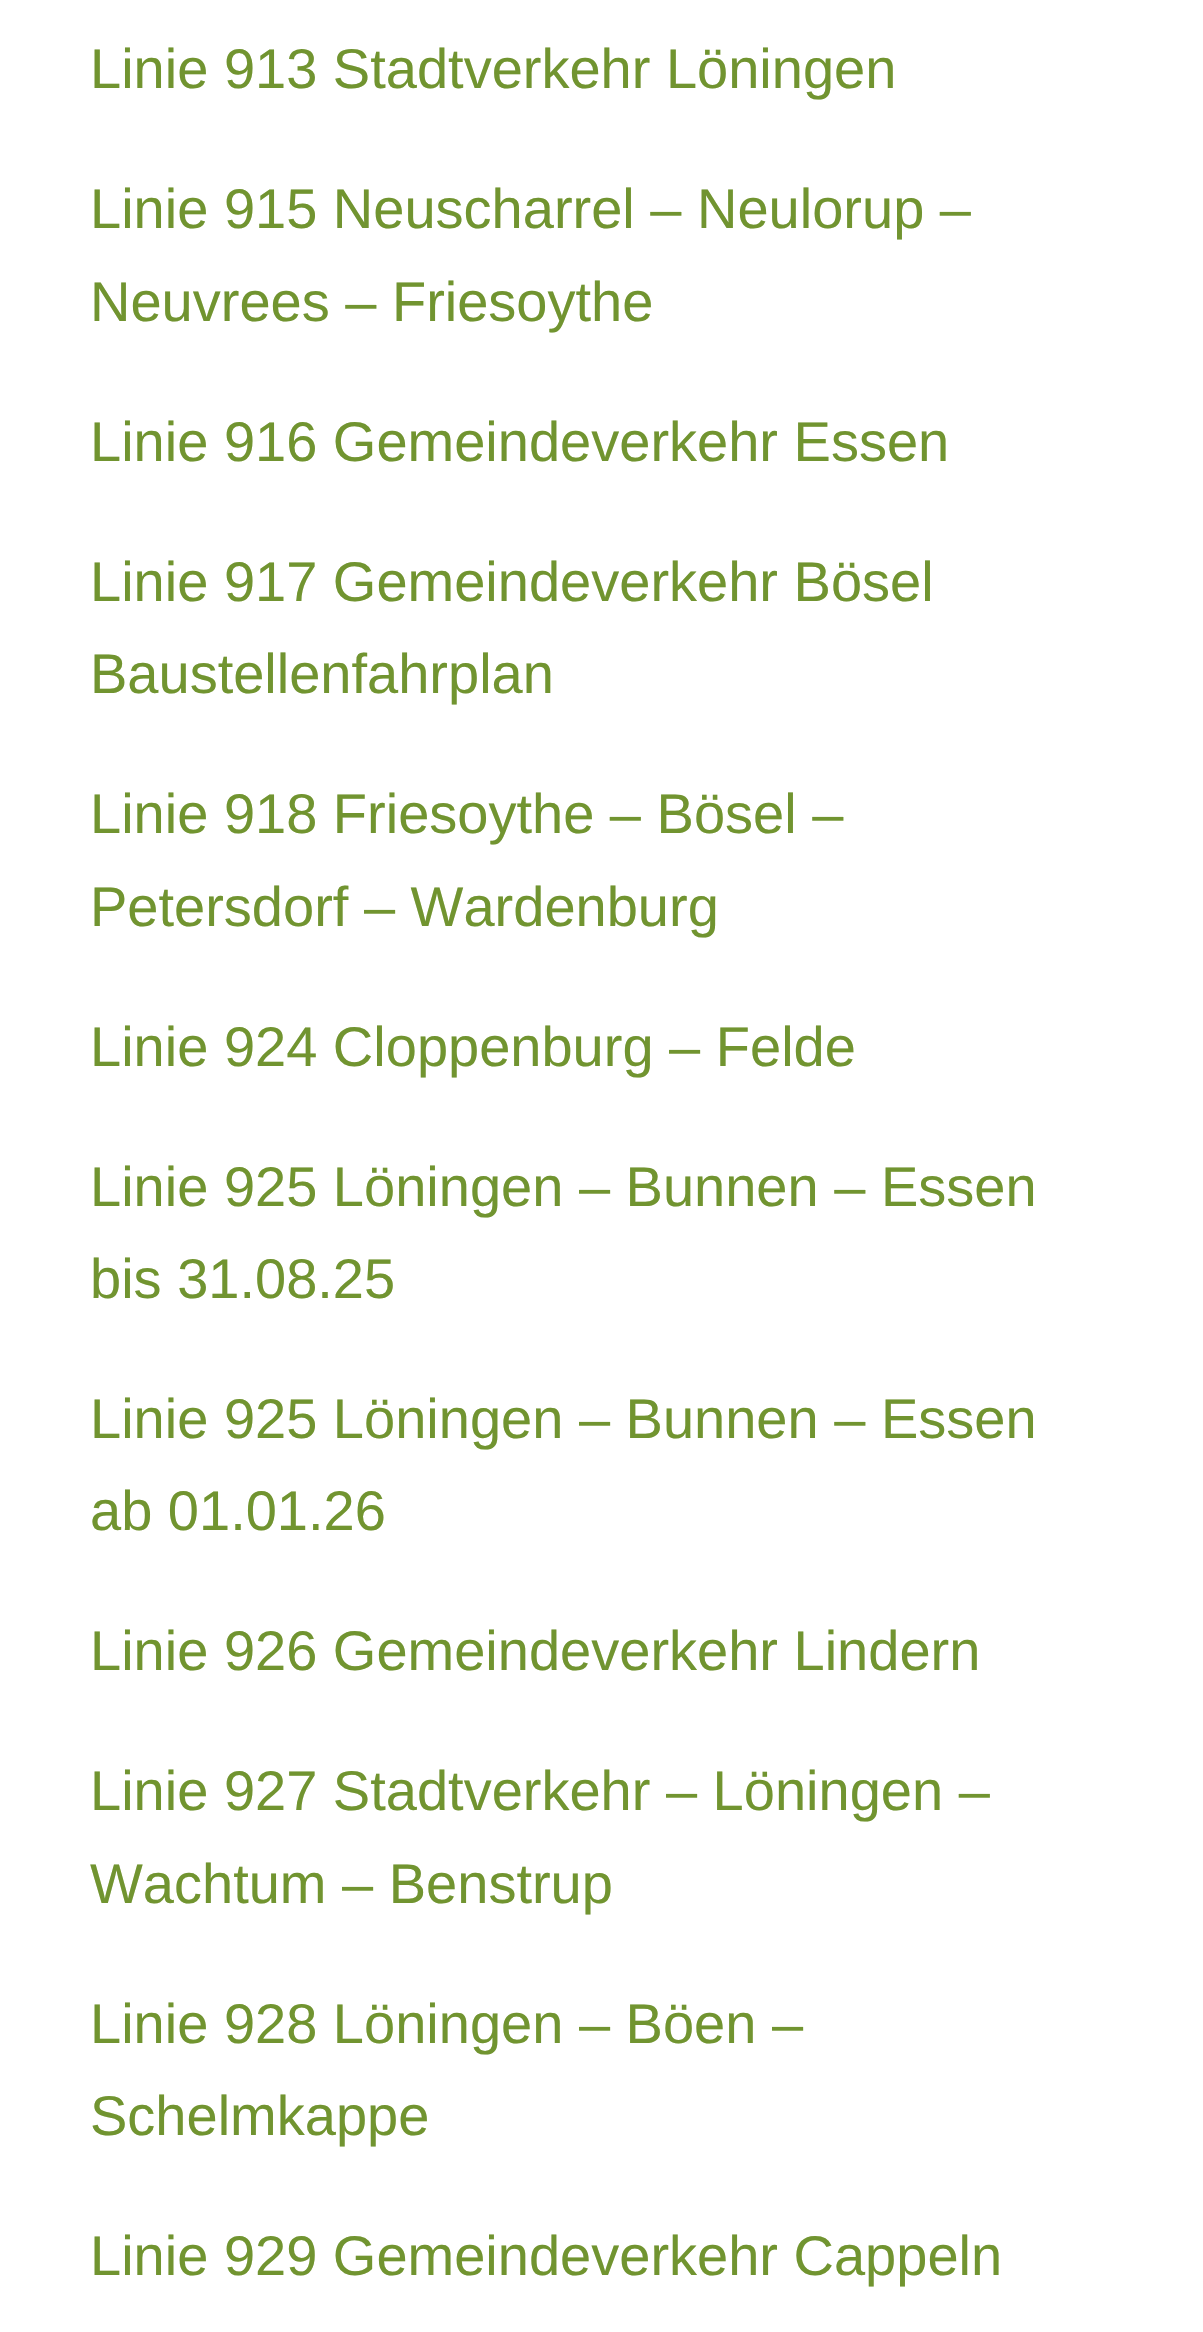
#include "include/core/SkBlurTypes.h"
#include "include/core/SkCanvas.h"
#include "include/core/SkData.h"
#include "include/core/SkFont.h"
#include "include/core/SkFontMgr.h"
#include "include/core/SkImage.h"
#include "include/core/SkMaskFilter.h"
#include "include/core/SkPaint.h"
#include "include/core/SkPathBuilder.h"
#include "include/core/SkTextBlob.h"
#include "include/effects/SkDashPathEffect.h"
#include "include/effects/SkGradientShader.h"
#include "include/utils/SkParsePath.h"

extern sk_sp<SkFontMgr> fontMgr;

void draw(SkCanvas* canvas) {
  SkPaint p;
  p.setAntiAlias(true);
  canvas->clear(SK_ColorWHITE);
  SkFont font1(fontMgr->matchFamilyStyle("Liberation Sans", SkFontStyle::Normal()), 56);
  font1.setSubpixel(true);
  p.setColor(SkColorSetRGB(113, 148, 48));
  canvas->drawString("Linie 913 Stadtverkehr Löningen", 90, 88, font1, p);
  canvas->drawString("Linie 915 Neuscharrel – Neulorup –", 90, 228, font1, p);
  canvas->drawString("Neuvrees – Friesoythe", 90, 321, font1, p);
  canvas->drawString("Linie 916 Gemeindeverkehr Essen", 90, 461, font1, p);
  canvas->drawString("Linie 917 Gemeindeverkehr Bösel", 90, 601, font1, p);
  canvas->drawString("Baustellenfahrplan", 90, 693, font1, p);
  canvas->drawString("Linie 918 Friesoythe – Bösel –", 90, 833, font1, p);
  canvas->drawString("Petersdorf – Wardenburg", 90, 926, font1, p);
  canvas->drawString("Linie 924 Cloppenburg – Felde", 90, 1066, font1, p);
  canvas->drawString("Linie 925 Löningen – Bunnen – Essen", 90, 1206, font1, p);
  canvas->drawString("bis 31.08.25", 90, 1298, font1, p);
  canvas->drawString("Linie 925 Löningen – Bunnen – Essen", 90, 1438, font1, p);
  canvas->drawString("ab 01.01.26", 90, 1530, font1, p);
  canvas->drawString("Linie 926 Gemeindeverkehr Lindern", 90, 1670, font1, p);
  canvas->drawString("Linie 927 Stadtverkehr – Löningen –", 90, 1810, font1, p);
  canvas->drawString("Wachtum – Benstrup", 90, 1903, font1, p);
  canvas->drawString("Linie 928 Löningen – Böen –", 90, 2043, font1, p);
  canvas->drawString("Schelmkappe", 90, 2135, font1, p);
  canvas->drawString("Linie 929 Gemeindeverkehr Cappeln", 90, 2275, font1, p);
}
